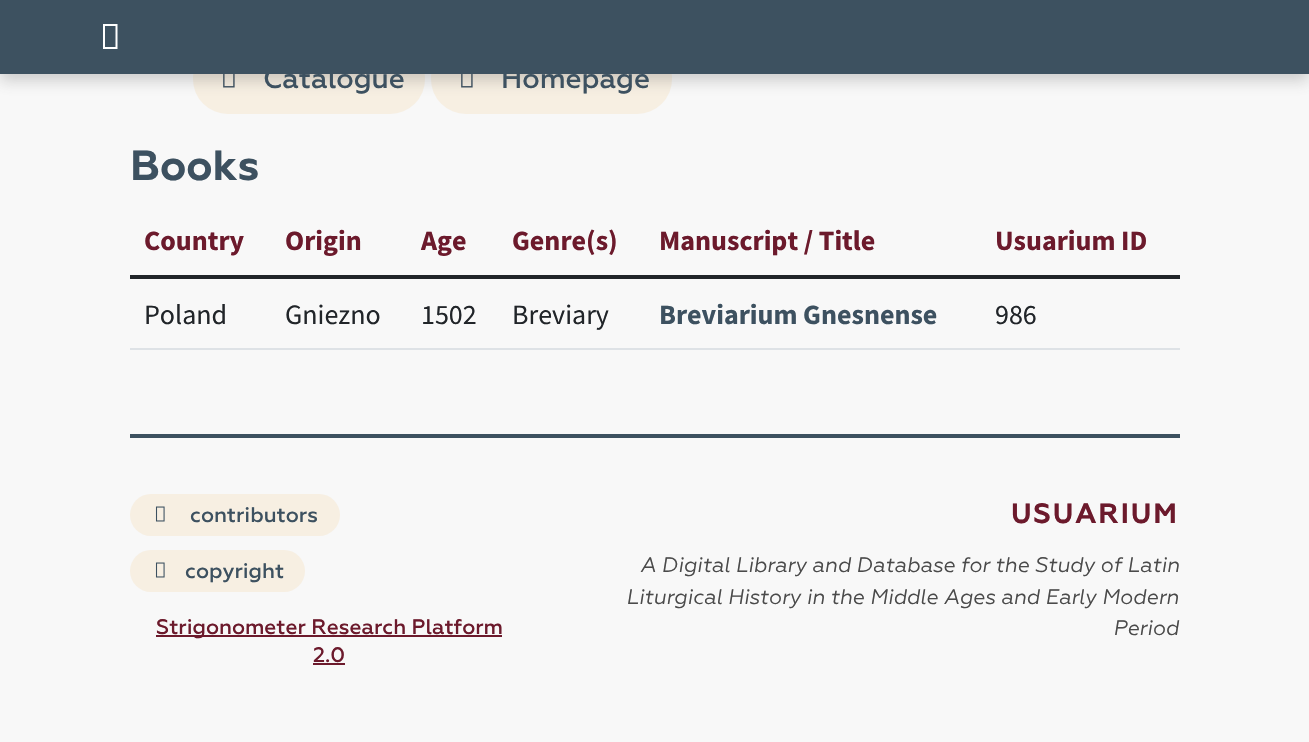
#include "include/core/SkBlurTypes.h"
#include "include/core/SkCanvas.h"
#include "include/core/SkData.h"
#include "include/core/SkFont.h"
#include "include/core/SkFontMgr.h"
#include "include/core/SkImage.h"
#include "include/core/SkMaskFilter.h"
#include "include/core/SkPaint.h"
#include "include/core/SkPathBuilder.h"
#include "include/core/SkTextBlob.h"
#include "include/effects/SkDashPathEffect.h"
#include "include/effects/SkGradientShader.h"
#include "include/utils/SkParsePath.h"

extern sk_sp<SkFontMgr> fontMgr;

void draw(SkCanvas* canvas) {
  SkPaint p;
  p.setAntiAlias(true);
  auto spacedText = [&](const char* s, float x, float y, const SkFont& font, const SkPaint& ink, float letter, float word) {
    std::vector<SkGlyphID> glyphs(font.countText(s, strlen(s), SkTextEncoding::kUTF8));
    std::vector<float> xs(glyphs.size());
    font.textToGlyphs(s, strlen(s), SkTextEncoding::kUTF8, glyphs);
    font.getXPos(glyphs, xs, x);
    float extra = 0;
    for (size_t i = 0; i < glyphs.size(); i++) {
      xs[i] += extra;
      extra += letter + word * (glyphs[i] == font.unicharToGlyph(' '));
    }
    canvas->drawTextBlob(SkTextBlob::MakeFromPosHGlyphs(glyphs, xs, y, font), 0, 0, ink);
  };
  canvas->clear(SkColorSetRGB(248, 248, 248));
  p.setColor(SkColorSetRGB(247, 239, 226));
  canvas->drawRoundRect(SkRect::MakeLTRB(193, 42, 425, 114), 35, 35, p);
  canvas->drawImageRect(SkImages::DeferredFromEncodedData(SkData::MakeFromFileName("images/1.png")), SkRect::MakeLTRB(223, 74, 235, 88), SkSamplingOptions());
  canvas->drawRoundRect(SkRect::MakeLTRB(431, 42, 672, 114), 35, 35, p);
  canvas->drawImageRect(SkImages::DeferredFromEncodedData(SkData::MakeFromFileName("images/1.png")), SkRect::MakeLTRB(461, 74, 473, 88), SkSamplingOptions());
  p.setColor(SkColorSetARGB(64, 74, 74, 74));
  p.setMaskFilter(SkMaskFilter::MakeBlur(kNormal_SkBlurStyle, 7));
  canvas->drawRect(SkRect::MakeLTRB(0, 7, 1309, 81), p);
  p.setMaskFilter(nullptr);
  p.setColor(SkColorSetRGB(61, 81, 96));
  canvas->drawRect(SkRect::MakeLTRB(0, 0, 1309, 74), p);
  p.setColor(SK_ColorWHITE);
  canvas->drawPath(SkPathBuilder().moveTo(103, 49).lineTo(103, 24).lineTo(117.5f, 24).lineTo(117.5f, 49).close().moveTo(105, 47).lineTo(115.5f, 47).lineTo(115.5f, 26).lineTo(105, 26).close().detach(), p);
  p.setColor(SkColorSetRGB(33, 37, 41));
  canvas->drawRect(SkRect::MakeLTRB(130, 275, 1180, 279), p);
  p.setColor(SkColorSetRGB(222, 226, 230));
  canvas->drawRect(SkRect::MakeLTRB(130, 348, 1180, 350), p);
  p.setColor(SkColorSetRGB(61, 81, 96));
  canvas->drawRect(SkRect::MakeLTRB(130, 434, 1180, 438), p);
  p.setColor(SkColorSetRGB(247, 239, 226));
  canvas->drawRoundRect(SkRect::MakeLTRB(130, 494, 340, 536), 21, 21, p);
  canvas->drawImageRect(SkImages::DeferredFromEncodedData(SkData::MakeFromFileName("images/2.png")), SkRect::MakeLTRB(155, 506, 165, 522), SkSamplingOptions());
  canvas->drawRoundRect(SkRect::MakeLTRB(130, 550, 305, 592), 21, 21, p);
  canvas->drawImageRect(SkImages::DeferredFromEncodedData(SkData::MakeFromFileName("images/2.png")), SkRect::MakeLTRB(155, 562, 165, 578), SkSamplingOptions());
  p.setColor(SkColorSetRGB(108, 26, 44));
  canvas->drawRect(SkRect::MakeLTRB(156, 635, 502, 637), p);
  canvas->drawRect(SkRect::MakeLTRB(313, 663, 345, 665), p);
  SkFont font1(fontMgr->matchFamilyStyle("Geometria", SkFontStyle(500, SkFontStyle::kNormal_Width, SkFontStyle::kUpright_Slant)), 28);
  font1.setSubpixel(true);
  p.setColor(SkColorSetRGB(61, 81, 96));
  canvas->drawString("Catalogue", 263, 88, font1, p);
  canvas->drawString("Homepage", 501, 88, font1, p);
  SkFont font2(fontMgr->matchFamilyStyle("Geometria", SkFontStyle::Bold()), 42);
  font2.setSubpixel(true);
  canvas->drawString("Books", 130, 180, font2, p);
  SkFont font3(fontMgr->matchFamilyStyle("Source Sans Pro", SkFontStyle::Bold()), 28);
  font3.setSubpixel(true);
  p.setColor(SkColorSetRGB(108, 26, 44));
  canvas->drawString("Country", 144, 250, font3, p);
  canvas->drawString("Origin", 285, 250, font3, p);
  canvas->drawString("Age", 421, 250, font3, p);
  canvas->drawString("Genre(s)", 512, 250, font3, p);
  canvas->drawString("Manuscript / Title", 659, 250, font3, p);
  canvas->drawString("Usuarium ID", 995, 250, font3, p);
  SkFont font4(fontMgr->matchFamilyStyle("Source Sans Pro", SkFontStyle::Normal()), 28);
  font4.setSubpixel(true);
  p.setColor(SkColorSetRGB(33, 37, 41));
  canvas->drawString("Poland", 144, 324, font4, p);
  canvas->drawString("Gniezno", 285, 324, font4, p);
  canvas->drawString("1502", 421, 324, font4, p);
  canvas->drawString("Breviary", 512, 324, font4, p);
  p.setColor(SkColorSetRGB(61, 81, 96));
  canvas->drawString("Breviarium Gnesnense", 659, 324, font3, p);
  p.setColor(SkColorSetRGB(33, 37, 41));
  canvas->drawString("986", 995, 324, font4, p);
  SkFont font5(fontMgr->matchFamilyStyle("Geometria", SkFontStyle(500, SkFontStyle::kNormal_Width, SkFontStyle::kUpright_Slant)), 21);
  font5.setSubpixel(true);
  p.setColor(SkColorSetRGB(61, 81, 96));
  canvas->drawString("contributors", 190, 522, font5, p);
  canvas->drawString("copyright", 185, 578, font5, p);
  p.setColor(SkColorSetRGB(108, 26, 44));
  canvas->drawString("Strigonometer Research Platform", 156, 634, font5, p);
  canvas->drawString("2.0", 313, 662, font5, p);
  SkFont font6(fontMgr->matchFamilyStyle("Geometria", SkFontStyle::Bold()), 28);
  font6.setSubpixel(true);
  spacedText("USUARIUM", 1011, 523, font6, p, 1.75f, 0);
  SkFont font7(fontMgr->matchFamilyStyle("Geometria", SkFontStyle::Italic()), 21);
  font7.setSubpixel(true);
  p.setColor(SkColorSetRGB(74, 74, 74));
  canvas->drawString("A Digital Library and Database for the Study of Latin", 640, 572, font7, p);
  canvas->drawString("Liturgical History in the Middle Ages and Early Modern", 626, 604, font7, p);
  canvas->drawString("Period", 1113, 635, font7, p);
}
